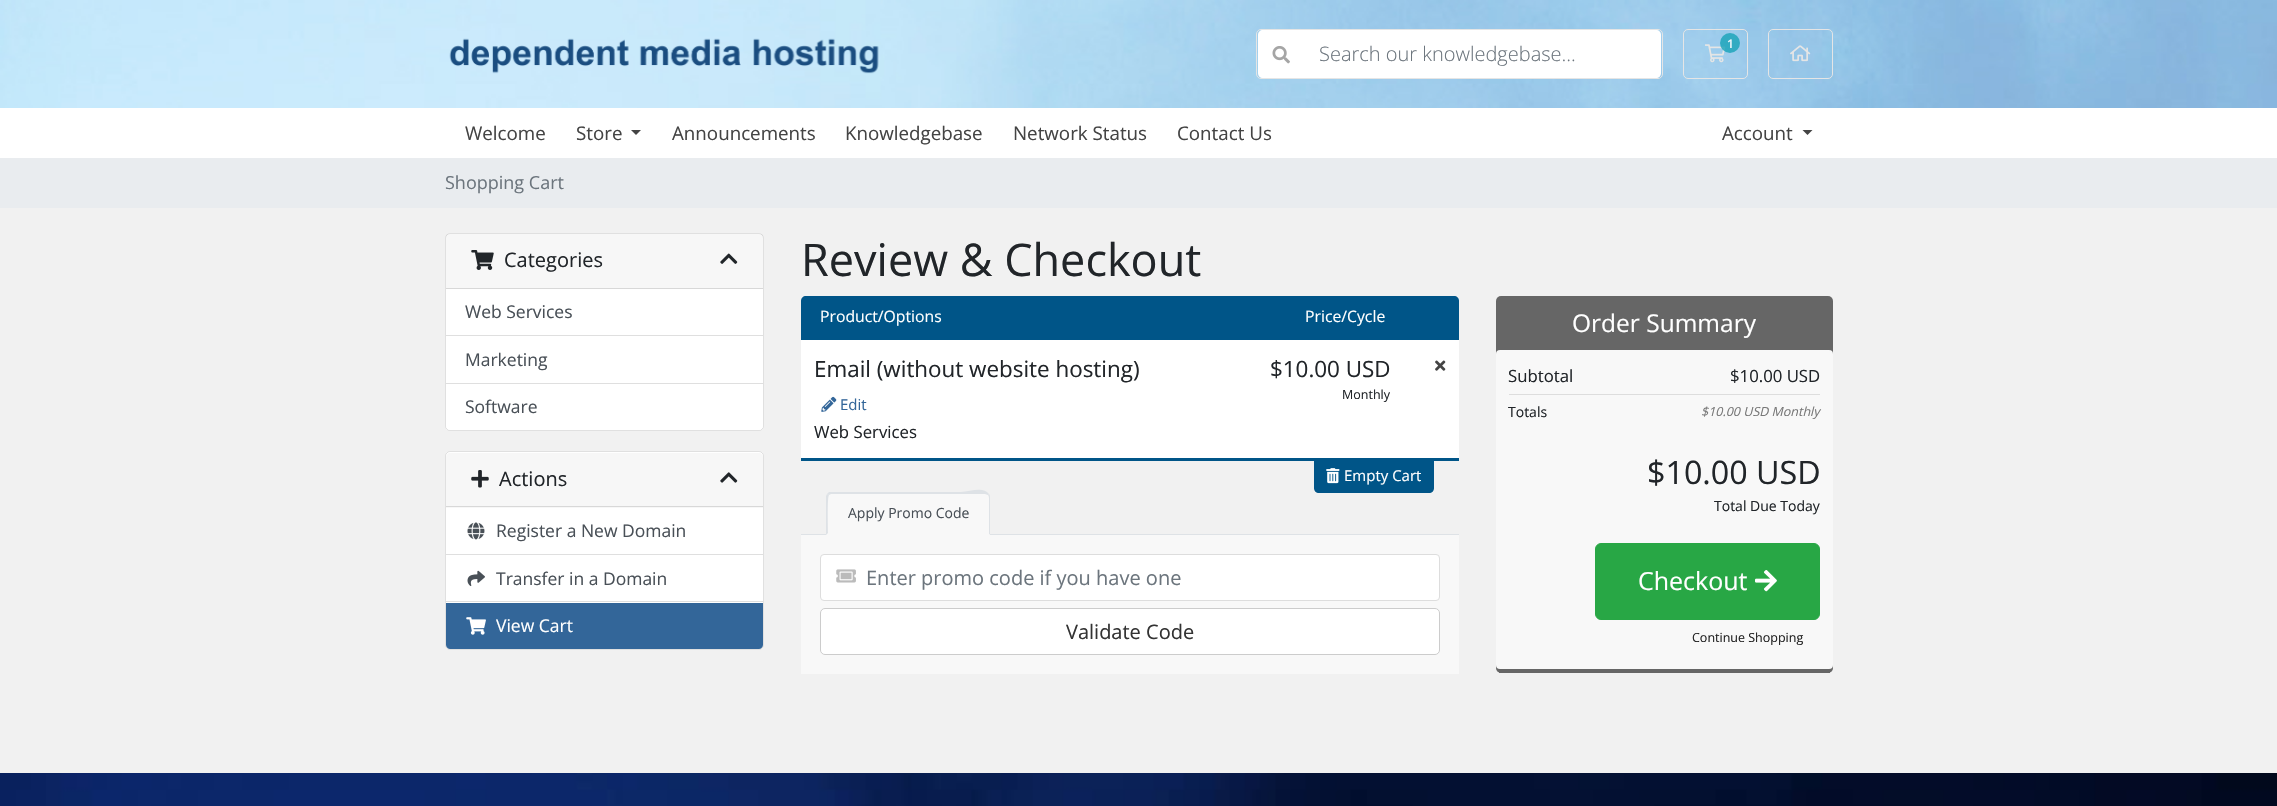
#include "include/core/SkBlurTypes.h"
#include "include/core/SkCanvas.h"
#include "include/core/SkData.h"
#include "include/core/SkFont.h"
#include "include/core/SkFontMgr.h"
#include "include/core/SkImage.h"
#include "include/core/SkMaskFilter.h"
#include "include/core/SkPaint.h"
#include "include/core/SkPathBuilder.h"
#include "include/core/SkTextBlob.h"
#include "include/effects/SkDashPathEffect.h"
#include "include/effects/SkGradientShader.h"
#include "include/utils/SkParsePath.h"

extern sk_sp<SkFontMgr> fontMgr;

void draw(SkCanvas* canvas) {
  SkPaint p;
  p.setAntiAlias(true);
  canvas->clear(SkColorSetRGB(241, 241, 241));
  p.setColor(SK_ColorWHITE);
  canvas->drawRect(SkRect::MakeLTRB(0, 108, 2277, 158), p);
  canvas->drawImageRect(SkImages::DeferredFromEncodedData(SkData::MakeFromFileName("images/1.png")), SkRect::MakeLTRB(0, 0, 2277, 108), SkSamplingOptions());
  canvas->drawImageRect(SkImages::DeferredFromEncodedData(SkData::MakeFromFileName("images/2.png")), SkRect::MakeLTRB(449, 38, 879, 74), SkSamplingOptions());
  p.setStyle(SkPaint::kStroke_Style);
  p.setStrokeWidth(1);
  p.setColor(SkColorSetRGB(229, 229, 229));
  canvas->drawRoundRect(SkRect::MakeLTRB(1683.5f, 29.5f, 1747.5f, 78.5f), 4.5f, 4.5f, p);
  canvas->drawImageRect(SkImages::DeferredFromEncodedData(SkData::MakeFromFileName("images/3.png")), SkRect::MakeLTRB(1705, 44, 1726, 63), SkSamplingOptions());
  p.setStyle(SkPaint::kFill_Style);
  p.setColor(SkColorSetARGB(204, 23, 162, 184));
  canvas->drawCircle(1730, 43, 10, p);
  p.setStyle(SkPaint::kStroke_Style);
  p.setColor(SkColorSetRGB(229, 229, 229));
  canvas->drawRoundRect(SkRect::MakeLTRB(1768.5f, 29.5f, 1832.5f, 78.5f), 4.5f, 4.5f, p);
  canvas->drawImageRect(SkImages::DeferredFromEncodedData(SkData::MakeFromFileName("images/4.png")), SkRect::MakeLTRB(1790, 45, 1811, 62), SkSamplingOptions());
  canvas->drawRoundRect(SkRect::MakeLTRB(1256.5f, 29.5f, 1662.5f, 78.5f), 4.5f, 4.5f, p);
  p.setStyle(SkPaint::kFill_Style);
  p.setColor(SK_ColorWHITE);
  canvas->drawPath(SkPathBuilder().moveTo(1304, 30).lineTo(1656, 30).cubicTo(1659, 30, 1661, 32, 1661, 35).lineTo(1661, 73).cubicTo(1661, 76, 1659, 78, 1656, 78).lineTo(1304, 78).close().detach(), p);
  canvas->drawPath(SkPathBuilder().moveTo(1263, 30).lineTo(1305, 30).lineTo(1305, 78).lineTo(1263, 78).cubicTo(1260, 78, 1258, 76, 1258, 73).lineTo(1258, 35).cubicTo(1258, 32, 1260, 30, 1263, 30).close().detach(), p);
  canvas->drawImageRect(SkImages::DeferredFromEncodedData(SkData::MakeFromFileName("images/5.png")), SkRect::MakeLTRB(1272, 46, 1290, 64), SkSamplingOptions());
  p.setColor(SkColorSetRGB(68, 68, 68));
  canvas->drawPath(SkPathBuilder().moveTo(631, 130).lineTo(641, 130).lineTo(636, 135).close().detach(), p);
  canvas->drawPath(SkPathBuilder().moveTo(1802.5f, 130).lineTo(1812.5f, 130).lineTo(1807.5f, 135).close().detach(), p);
  p.setColor(SkColorSetRGB(233, 236, 239));
  canvas->drawRect(SkRect::MakeLTRB(0, 158, 2277, 208), p);
  p.setColor(SK_ColorWHITE);
  canvas->drawRoundRect(SkRect::MakeLTRB(445, 233, 764, 431), 5, 5, p);
  p.setStyle(SkPaint::kStroke_Style);
  p.setColor(SkColorSetARGB(31, 0, 0, 0));
  canvas->drawRoundRect(SkRect::MakeLTRB(445.5f, 233.5f, 763.5f, 430.5f), 4.5f, 4.5f, p);
  p.setStyle(SkPaint::kFill_Style);
  p.setColor(SkColorSetARGB(8, 0, 0, 0));
  canvas->drawRect(SkRect::MakeLTRB(446, 234, 763, 288), p);
  p.setColor(SkColorSetRGB(216, 216, 216));
  canvas->drawRect(SkRect::MakeLTRB(446, 288, 763, 289), p);
  canvas->drawImageRect(SkImages::DeferredFromEncodedData(SkData::MakeFromFileName("images/6.png")), SkRect::MakeLTRB(471, 250, 494, 270), SkSamplingOptions());
  canvas->drawImageRect(SkImages::DeferredFromEncodedData(SkData::MakeFromFileName("images/7.png")), SkRect::MakeLTRB(720, 253, 738, 264), SkSamplingOptions());
  p.setColor(SkColorSetRGB(223, 223, 223));
  canvas->drawRect(SkRect::MakeLTRB(446, 335, 763, 336), p);
  canvas->drawRect(SkRect::MakeLTRB(446, 383, 763, 384), p);
  p.setColor(SK_ColorWHITE);
  canvas->drawPath(SkPathBuilder().moveTo(446, 384).lineTo(763, 384).lineTo(763, 426).cubicTo(763, 428, 761, 430, 759, 430).lineTo(450, 430).cubicTo(448, 430, 446, 428, 446, 426).close().detach(), p);
  canvas->drawRoundRect(SkRect::MakeLTRB(445, 451, 764, 650), 5, 5, p);
  p.setStyle(SkPaint::kStroke_Style);
  p.setColor(SkColorSetARGB(31, 0, 0, 0));
  canvas->drawRoundRect(SkRect::MakeLTRB(445.5f, 451.5f, 763.5f, 649.5f), 4.5f, 4.5f, p);
  p.setStyle(SkPaint::kFill_Style);
  p.setColor(SkColorSetRGB(247, 247, 247));
  canvas->drawPath(SkPathBuilder().moveTo(450, 453).lineTo(759, 453).cubicTo(761, 453, 763, 455, 763, 457).lineTo(763, 508).lineTo(446, 508).lineTo(446, 457).cubicTo(446, 455, 448, 453, 450, 453).close().detach(), p);
  p.setColor(SkColorSetRGB(216, 216, 216));
  canvas->drawRect(SkRect::MakeLTRB(446, 506, 763, 507), p);
  canvas->drawImageRect(SkImages::DeferredFromEncodedData(SkData::MakeFromFileName("images/8.png")), SkRect::MakeLTRB(471, 470, 489, 488), SkSamplingOptions());
  canvas->drawImageRect(SkImages::DeferredFromEncodedData(SkData::MakeFromFileName("images/9.png")), SkRect::MakeLTRB(720, 472, 738, 483), SkSamplingOptions());
  p.setColor(SkColorSetRGB(223, 223, 223));
  canvas->drawRect(SkRect::MakeLTRB(446, 554, 763, 555), p);
  canvas->drawImageRect(SkImages::DeferredFromEncodedData(SkData::MakeFromFileName("images/10.png")), SkRect::MakeLTRB(467, 522, 485, 540), SkSamplingOptions());
  canvas->drawRect(SkRect::MakeLTRB(446, 601, 763, 602), p);
  canvas->drawImageRect(SkImages::DeferredFromEncodedData(SkData::MakeFromFileName("images/11.png")), SkRect::MakeLTRB(467, 570, 485, 587), SkSamplingOptions());
  p.setColor(SkColorSetRGB(51, 102, 153));
  canvas->drawPath(SkPathBuilder().moveTo(446, 603).lineTo(763, 603).lineTo(763, 645).cubicTo(763, 647, 761, 649, 759, 649).lineTo(450, 649).cubicTo(448, 649, 446, 647, 446, 645).close().detach(), p);
  canvas->drawImageRect(SkImages::DeferredFromEncodedData(SkData::MakeFromFileName("images/12.png")), SkRect::MakeLTRB(466, 617, 486, 635), SkSamplingOptions());
  p.setColor(SkColorSetRGB(0, 85, 136));
  canvas->drawPath(SkPathBuilder().moveTo(806, 296).lineTo(1454, 296).cubicTo(1457, 296, 1459, 298, 1459, 301).lineTo(1459, 340).lineTo(801, 340).lineTo(801, 301).cubicTo(801, 298, 803, 296, 806, 296).close().detach(), p);
  canvas->drawRect(SkRect::MakeLTRB(801, 458, 1459, 461), p);
  p.setColor(SK_ColorWHITE);
  canvas->drawRect(SkRect::MakeLTRB(801, 340, 1459, 458), p);
  canvas->drawImageRect(SkImages::DeferredFromEncodedData(SkData::MakeFromFileName("images/13.png")), SkRect::MakeLTRB(821, 396, 837, 412), SkSamplingOptions());
  canvas->drawImageRect(SkImages::DeferredFromEncodedData(SkData::MakeFromFileName("images/14.png")), SkRect::MakeLTRB(1435, 360, 1446, 371), SkSamplingOptions());
  p.setColor(SkColorSetRGB(0, 85, 136));
  canvas->drawPath(SkPathBuilder().moveTo(1314, 460).lineTo(1434, 460).lineTo(1434, 488).cubicTo(1434, 491, 1432, 493, 1429, 493).lineTo(1319, 493).cubicTo(1316, 493, 1314, 491, 1314, 488).close().detach(), p);
  canvas->drawImageRect(SkImages::DeferredFromEncodedData(SkData::MakeFromFileName("images/15.png")), SkRect::MakeLTRB(1326, 468, 1340, 484), SkSamplingOptions());
  p.setColor(SkColorSetRGB(222, 226, 230));
  canvas->drawRect(SkRect::MakeLTRB(801, 534, 1459, 535), p);
  p.setColor(SkColorSetRGB(248, 248, 248));
  canvas->drawPath(SkPathBuilder().moveTo(831, 493).lineTo(985, 493).cubicTo(988, 493, 990, 495, 990, 498).lineTo(990, 535).lineTo(826, 535).lineTo(826, 498).cubicTo(826, 495, 828, 493, 831, 493).close().detach(), p);
  p.setColor(SkColorSetRGB(222, 226, 230));
  canvas->drawPath(SkPathBuilder().moveTo(831, 494).lineTo(829, 495).lineTo(827, 494).lineTo(829, 492).lineTo(961, 492).cubicTo(970, 492, 983, 486, 989, 494).lineTo(988, 495).lineTo(985, 494).close().detach(), p);
  canvas->drawPath(SkPathBuilder().moveTo(990, 535).lineTo(990, 498).cubicTo(990, 496, 990, 495, 989, 494).lineTo(988, 495).cubicTo(988, 495, 989, 496, 989, 498).lineTo(989, 534).close().detach(), p);
  p.setColor(SkColorSetRGB(248, 248, 248));
  canvas->drawPath(SkPathBuilder().moveTo(990, 535).lineTo(989, 534).lineTo(828, 534).lineTo(828, 533).lineTo(826, 535).close().detach(), p);
  p.setColor(SkColorSetRGB(222, 226, 230));
  canvas->drawPath(SkPathBuilder().moveTo(826, 535).lineTo(826, 496).lineTo(827, 494).lineTo(829, 495).cubicTo(827, 497, 828, 528, 828, 533).close().detach(), p);
  p.setColor(SkColorSetRGB(248, 248, 248));
  canvas->drawRect(SkRect::MakeLTRB(801, 535, 1459, 674), p);
  p.setColor(SK_ColorWHITE);
  canvas->drawRoundRect(SkRect::MakeLTRB(821, 555, 1439, 600), 2.5f, 2.5f, p);
  p.setStyle(SkPaint::kStroke_Style);
  p.setColor(SkColorSetRGB(221, 221, 221));
  canvas->drawRoundRect(SkRect::MakeLTRB(820.5f, 554.5f, 1439.5f, 600.5f), 3.5f, 3.5f, p);
  canvas->drawImageRect(SkImages::DeferredFromEncodedData(SkData::MakeFromFileName("images/16.png")), SkRect::MakeLTRB(836, 569, 856, 583), SkSamplingOptions());
  p.setStyle(SkPaint::kFill_Style);
  p.setColor(SK_ColorWHITE);
  canvas->drawRoundRect(SkRect::MakeLTRB(820.5f, 608.5f, 1439.5f, 654.5f), 4.5f, 4.5f, p);
  p.setStyle(SkPaint::kStroke_Style);
  p.setColor(SkColorSetRGB(204, 204, 204));
  canvas->drawRoundRect(SkRect::MakeLTRB(820.5f, 608.5f, 1439.5f, 654.5f), 4.5f, 4.5f, p);
  p.setStyle(SkPaint::kFill_Style);
  p.setColor(SkColorSetRGB(102, 102, 102));
  canvas->drawRoundRect(SkRect::MakeLTRB(1496, 296, 1833, 673), 5, 5, p);
  canvas->drawRect(SkRect::MakeLTRB(1499, 672, 1830, 673), p);
  p.setColor(SkColorSetRGB(248, 248, 248));
  canvas->drawRoundRect(SkRect::MakeLTRB(1496, 350, 1833, 669), 4, 4, p);
  p.setColor(SkColorSetRGB(221, 221, 221));
  canvas->drawRect(SkRect::MakeLTRB(1509, 394, 1820, 395), p);
  p.setColor(SkColorSetRGB(40, 167, 69));
  canvas->drawRoundRect(SkRect::MakeLTRB(1595.5f, 543.5f, 1819.5f, 619.5f), 5.5f, 5.5f, p);
  p.setStyle(SkPaint::kStroke_Style);
  canvas->drawRoundRect(SkRect::MakeLTRB(1595.5f, 543.5f, 1819.5f, 619.5f), 5.5f, 5.5f, p);
  canvas->drawImageRect(SkImages::DeferredFromEncodedData(SkData::MakeFromFileName("images/17.png")), SkRect::MakeLTRB(1755, 570, 1777, 592), SkSamplingOptions());
  canvas->drawImageRect(SkImages::DeferredFromEncodedData(SkData::MakeFromFileName("images/18.png")), SkRect::MakeLTRB(0, 773, 2277, 806), SkSamplingOptions());
  SkFont font1(fontMgr->matchFamilyStyle("Open Sans", SkFontStyle(600, SkFontStyle::kNormal_Width, SkFontStyle::kUpright_Slant)), 12);
  font1.setSubpixel(true);
  p.setStyle(SkPaint::kFill_Style);
  p.setColor(SkColorSetRGB(236, 245, 251));
  canvas->drawString("1", 1727, 48, font1, p);
  SkFont font2(fontMgr->matchFamilyStyle("Open Sans", SkFontStyle(300, SkFontStyle::kNormal_Width, SkFontStyle::kUpright_Slant)), 20);
  font2.setSubpixel(true);
  p.setColor(SkColorSetRGB(108, 117, 125));
  canvas->drawString("Search our knowledgebase...", 1319, 61, font2, p);
  SkFont font3(fontMgr->matchFamilyStyle("Open Sans", SkFontStyle::Normal()), 18.75f);
  font3.setSubpixel(true);
  p.setColor(SkColorSetRGB(68, 68, 68));
  canvas->drawString("Welcome", 465, 140, font3, p);
  canvas->drawString("Store", 576, 140, font3, p);
  canvas->drawString("Announcements", 672, 140, font3, p);
  canvas->drawString("Knowledgebase", 845, 140, font3, p);
  canvas->drawString("Network Status", 1013, 140, font3, p);
  canvas->drawString("Contact Us", 1177, 140, font3, p);
  canvas->drawString("Account", 1722, 140, font3, p);
  SkFont font4(fontMgr->matchFamilyStyle("Open Sans", SkFontStyle::Normal()), 18);
  font4.setSubpixel(true);
  p.setColor(SkColorSetRGB(108, 117, 125));
  canvas->drawString("Shopping Cart", 445, 189, font4, p);
  SkFont font5(fontMgr->matchFamilyStyle("Open Sans", SkFontStyle::Normal()), 20);
  font5.setSubpixel(true);
  p.setColor(SkColorSetRGB(33, 37, 41));
  canvas->drawString("Categories", 504, 267, font5, p);
  SkFont font6(fontMgr->matchFamilyStyle("Open Sans", SkFontStyle::Normal()), 17.5f);
  font6.setSubpixel(true);
  p.setColor(SkColorSetRGB(73, 80, 87));
  canvas->drawString("Web Services", 465, 318, font6, p);
  canvas->drawString("Marketing", 465, 366, font6, p);
  canvas->drawString("Software", 465, 413, font6, p);
  p.setColor(SkColorSetRGB(33, 37, 41));
  canvas->drawString("Actions", 499, 486, font5, p);
  p.setColor(SkColorSetRGB(73, 80, 87));
  canvas->drawString("Register a New Domain", 496, 537, font6, p);
  canvas->drawString("Transfer in a Domain", 496, 585, font6, p);
  p.setColor(SK_ColorWHITE);
  canvas->drawString("View Cart", 496, 632, font6, p);
  SkFont font7(fontMgr->matchFamilyStyle("Open Sans", SkFontStyle::Normal()), 45);
  font7.setSubpixel(true);
  p.setColor(SkColorSetRGB(33, 37, 41));
  canvas->drawString("Review & Checkout", 801, 276, font7, p);
  SkFont font8(fontMgr->matchFamilyStyle("Open Sans", SkFontStyle::Normal()), 15.75f);
  font8.setSubpixel(true);
  p.setColor(SK_ColorWHITE);
  canvas->drawString("Product/Options", 820, 322, font8, p);
  canvas->drawString("Price/Cycle", 1305, 322, font8, p);
  SkFont font9(fontMgr->matchFamilyStyle("Open Sans", SkFontStyle::Normal()), 22.4f);
  font9.setSubpixel(true);
  p.setColor(SkColorSetRGB(33, 37, 41));
  canvas->drawString("Email (without website hosting)", 814, 377, font9, p);
  SkFont font10(fontMgr->matchFamilyStyle("Open Sans", SkFontStyle::Normal()), 15);
  font10.setSubpixel(true);
  p.setColor(SkColorSetRGB(51, 102, 153));
  canvas->drawString("Edit", 840, 410, font10, p);
  SkFont font11(fontMgr->matchFamilyStyle("Open Sans", SkFontStyle::Normal()), 16.75f);
  font11.setSubpixel(true);
  p.setColor(SkColorSetRGB(33, 37, 41));
  canvas->drawString("Web Services", 814, 438, font11, p);
  canvas->drawString("$10.00 USD", 1270, 377, font9, p);
  SkFont font12(fontMgr->matchFamilyStyle("Open Sans", SkFontStyle::Normal()), 12.5f);
  font12.setSubpixel(true);
  canvas->drawString("Monthly", 1342, 399, font12, p);
  p.setColor(SK_ColorWHITE);
  canvas->drawString("Empty Cart", 1344, 481, font10, p);
  SkFont font13(fontMgr->matchFamilyStyle("Open Sans", SkFontStyle::Normal()), 14);
  font13.setSubpixel(true);
  p.setColor(SkColorSetRGB(73, 80, 87));
  canvas->drawString("Apply Promo Code", 848, 518, font13, p);
  p.setColor(SkColorSetRGB(108, 117, 125));
  canvas->drawString("Enter promo code if you have one", 866, 585, font5, p);
  p.setColor(SkColorSetRGB(51, 51, 51));
  canvas->drawString("Validate Code", 1066, 639, font5, p);
  SkFont font14(fontMgr->matchFamilyStyle("Open Sans", SkFontStyle::Normal()), 24.5f);
  font14.setSubpixel(true);
  p.setColor(SK_ColorWHITE);
  canvas->drawString("Order Summary", 1572, 332, font14, p);
  p.setColor(SkColorSetRGB(33, 37, 41));
  canvas->drawString("Subtotal", 1508, 382, font11, p);
  canvas->drawString("$10.00 USD", 1730, 382, font11, p);
  canvas->drawString("Totals", 1508, 417, font13, p);
  SkFont font15(fontMgr->matchFamilyStyle("Open Sans", SkFontStyle::Italic()), 12.5f);
  font15.setSubpixel(true);
  p.setColor(SkColorSetRGB(119, 119, 119));
  canvas->drawString("$10.00 USD Monthly", 1701, 416, font15, p);
  SkFont font16(fontMgr->matchFamilyStyle("Open Sans", SkFontStyle::Normal()), 32.25f);
  font16.setSubpixel(true);
  p.setColor(SkColorSetRGB(33, 37, 41));
  canvas->drawString("$10.00 USD", 1647, 484, font16, p);
  canvas->drawString("Total Due Today", 1714, 511, font13, p);
  SkFont font17(fontMgr->matchFamilyStyle("Open Sans", SkFontStyle::Normal()), 25);
  font17.setSubpixel(true);
  p.setColor(SK_ColorWHITE);
  canvas->drawString("Checkout", 1638, 590, font17, p);
  p.setColor(SkColorSetRGB(34, 34, 34));
  canvas->drawString("Continue Shopping", 1692, 642, font12, p);
}
